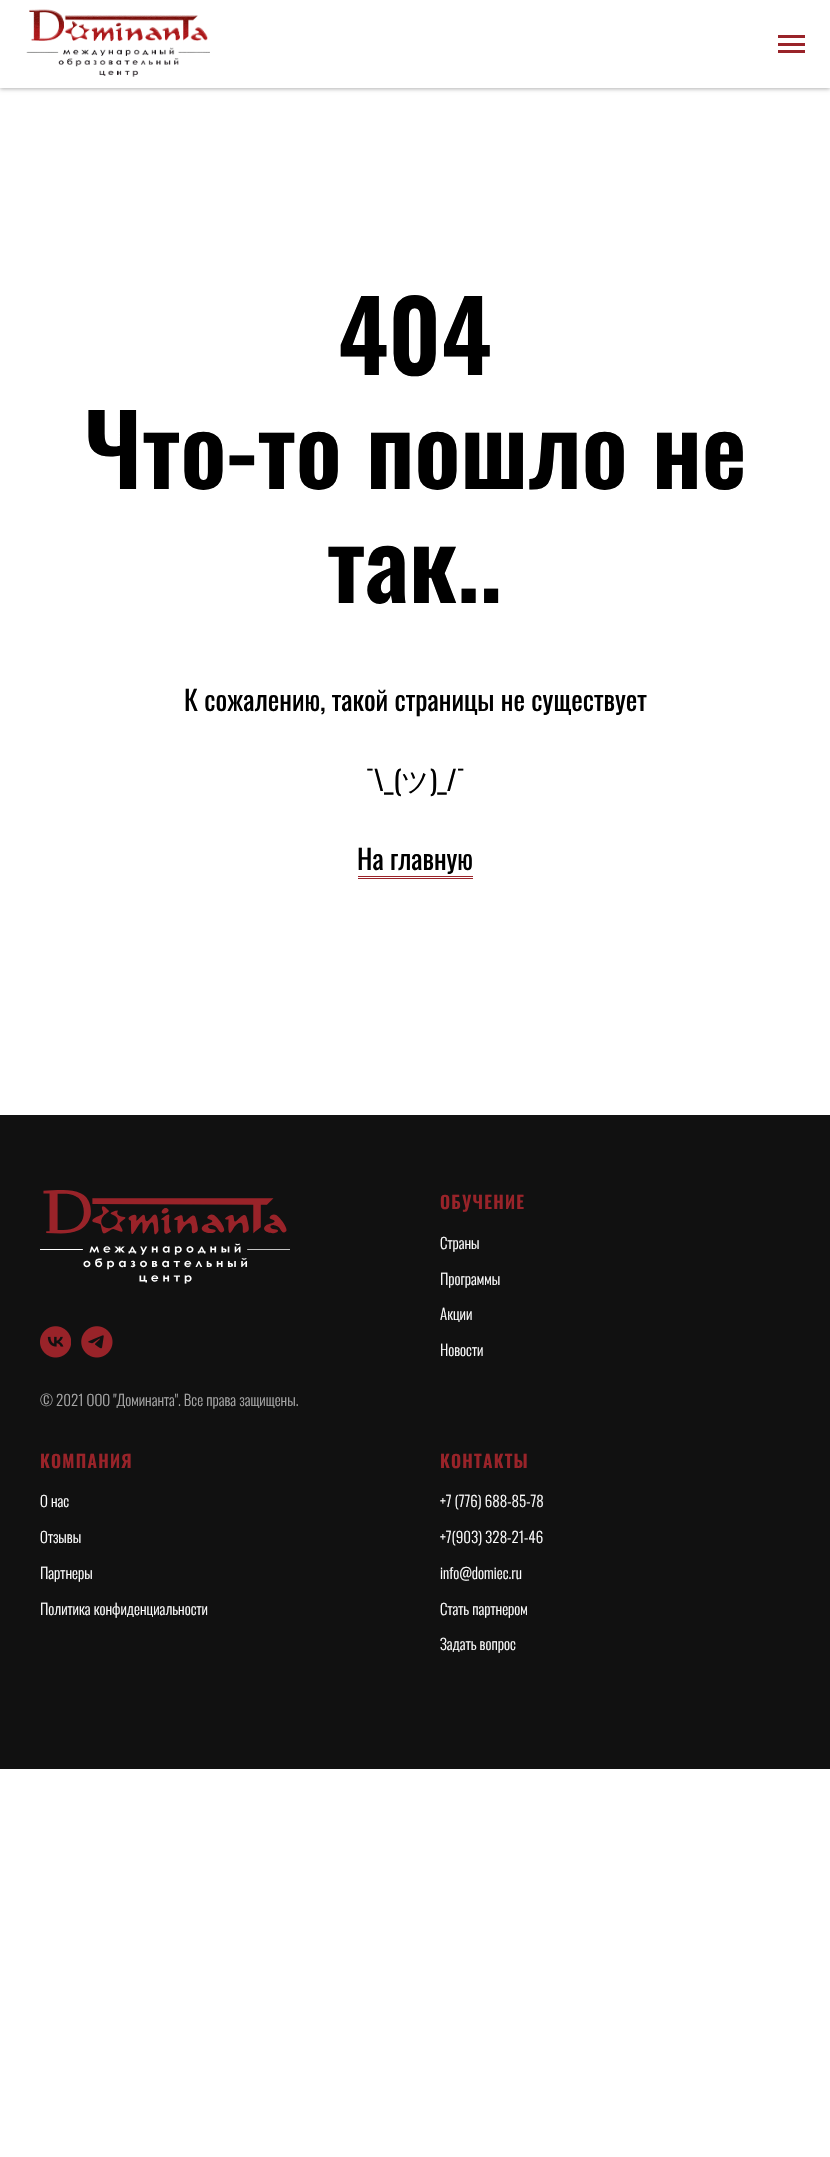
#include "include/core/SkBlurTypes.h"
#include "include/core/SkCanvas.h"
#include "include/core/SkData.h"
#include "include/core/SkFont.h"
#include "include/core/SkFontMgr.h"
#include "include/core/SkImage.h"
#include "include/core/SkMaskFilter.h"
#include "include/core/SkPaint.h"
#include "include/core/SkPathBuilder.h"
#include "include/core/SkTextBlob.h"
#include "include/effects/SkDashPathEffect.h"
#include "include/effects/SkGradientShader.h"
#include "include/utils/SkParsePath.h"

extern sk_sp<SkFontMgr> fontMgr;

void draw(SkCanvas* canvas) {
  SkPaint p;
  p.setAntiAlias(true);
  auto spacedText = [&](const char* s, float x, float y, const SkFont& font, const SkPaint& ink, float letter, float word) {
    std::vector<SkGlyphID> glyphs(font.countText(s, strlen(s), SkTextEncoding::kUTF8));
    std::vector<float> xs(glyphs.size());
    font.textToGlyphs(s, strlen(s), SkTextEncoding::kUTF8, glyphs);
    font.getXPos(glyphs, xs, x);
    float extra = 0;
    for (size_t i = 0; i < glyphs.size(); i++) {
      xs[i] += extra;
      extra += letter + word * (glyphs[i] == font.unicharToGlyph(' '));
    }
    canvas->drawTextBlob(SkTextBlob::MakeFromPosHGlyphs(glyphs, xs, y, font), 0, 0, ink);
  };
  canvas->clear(SK_ColorWHITE);
  canvas->save();
  canvas->clipPath(SkPathBuilder(SkPathFillType::kEvenOdd).moveTo(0, 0).lineTo(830, 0).lineTo(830, 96).lineTo(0, 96).close().moveTo(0, 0).lineTo(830, 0).lineTo(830, 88).lineTo(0, 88).close().detach(), true);
  p.setColor(SkColorSetARGB(77, 0, 0, 0));
  p.setMaskFilter(SkMaskFilter::MakeBlur(kNormal_SkBlurStyle, 2));
  canvas->drawRect(SkRect::MakeLTRB(0, 1, 830, 89), p);
  p.setMaskFilter(nullptr);
  canvas->restore();
  p.setColor(SkColorSetARGB(128, 255, 255, 255));
  canvas->drawRect(SkRect::MakeLTRB(0, 87, 830, 88), p);
  canvas->drawImageRect(SkImages::DeferredFromEncodedData(SkData::MakeFromFileName("images/1.png")), SkRect::MakeLTRB(26, 9, 210, 77), SkSamplingOptions());
  p.setColor(SkColorSetRGB(153, 35, 41));
  canvas->drawRect(SkRect::MakeLTRB(778, 35, 805, 38), p);
  canvas->drawRect(SkRect::MakeLTRB(778, 43, 805, 46), p);
  canvas->drawRect(SkRect::MakeLTRB(778, 50, 805, 53), p);
  canvas->drawRect(SkRect::MakeLTRB(358, 876, 473, 877), p);
  canvas->drawRect(SkRect::MakeLTRB(358, 878, 473, 879), p);
  p.setColor(SkColorSetRGB(17, 17, 17));
  canvas->drawRect(SkRect::MakeLTRB(0, 1115, 830, 1769), p);
  canvas->drawImageRect(SkImages::DeferredFromEncodedData(SkData::MakeFromFileName("images/2.png")), SkRect::MakeLTRB(40, 1190, 290, 1284), SkSamplingOptions());
  canvas->drawImageRect(SkImages::DeferredFromEncodedData(SkData::MakeFromFileName("images/3.png")), SkRect::MakeLTRB(40, 1326, 71, 1358), SkSamplingOptions());
  canvas->drawImageRect(SkImages::DeferredFromEncodedData(SkData::MakeFromFileName("images/4.png")), SkRect::MakeLTRB(81, 1326, 113, 1358), SkSamplingOptions());
  SkFont font1(fontMgr->matchFamilyStyle("Oswald", SkFontStyle(600, SkFontStyle::kNormal_Width, SkFontStyle::kUpright_Slant)), 97.5f);
  font1.setSubpixel(true);
  p.setColor(SK_ColorBLACK);
  canvas->drawString("404", 338, 375, font1, p);
  canvas->drawString("Что-то пошло не", 84, 489, font1, p);
  canvas->drawString("так..", 327, 603, font1, p);
  SkFont font2(fontMgr->matchFamilyStyle("Oswald", SkFontStyle::Normal()), 27.5f);
  font2.setSubpixel(true);
  canvas->drawString("К сожалению, такой страницы не существует", 184, 711, font2, p);
  canvas->drawString("¯\\_(", 366, 791, font2, p);
  SkFont font3(fontMgr->matchFamilyStyle("WenQuanYi Zen Hei", SkFontStyle(500, SkFontStyle::kNormal_Width, SkFontStyle::kUpright_Slant)), 27.5f);
  font3.setSubpixel(true);
  canvas->drawString("ツ", 401, 791, font3, p);
  canvas->drawString(")_/¯", 430, 791, font2, p);
  canvas->drawString("На главную", 357, 870, font2, p);
  SkFont font4(fontMgr->matchFamilyStyle("Oswald", SkFontStyle(600, SkFontStyle::kNormal_Width, SkFontStyle::kUpright_Slant)), 17.5f);
  font4.setSubpixel(true);
  p.setColor(SkColorSetRGB(153, 35, 41));
  spacedText("ОБУЧЕНИЕ", 440, 1209, font4, p, 1.25f, 0);
  SkFont font5(fontMgr->matchFamilyStyle("Oswald", SkFontStyle(300, SkFontStyle::kNormal_Width, SkFontStyle::kUpright_Slant)), 15);
  font5.setSubpixel(true);
  p.setColor(SK_ColorWHITE);
  canvas->drawString("Страны", 440, 1249, font5, p);
  canvas->drawString("Программы", 440, 1285, font5, p);
  canvas->drawString("Акции", 440, 1320, font5, p);
  canvas->drawString("Новости", 440, 1356, font5, p);
  p.setColor(SkColorSetRGB(167, 167, 167));
  canvas->drawString("© 2021 ООО \"Доминанта\". Все права защищены.", 40, 1406, font5, p);
  p.setColor(SkColorSetRGB(153, 35, 41));
  spacedText("КОМПАНИЯ", 40, 1468, font4, p, 1.25f, 0);
  p.setColor(SK_ColorWHITE);
  canvas->drawString("О нас", 40, 1507, font5, p);
  canvas->drawString("Отзывы", 40, 1543, font5, p);
  canvas->drawString("Партнеры", 40, 1579, font5, p);
  canvas->drawString("Политика конфиденциальности", 40, 1615, font5, p);
  p.setColor(SkColorSetRGB(153, 35, 41));
  spacedText("КОНТАКТЫ", 440, 1468, font4, p, 1.25f, 0);
  p.setColor(SK_ColorWHITE);
  canvas->drawString("+7 (776) 688-85-78", 440, 1507, font5, p);
  canvas->drawString("+7(903) 328-21-46", 440, 1543, font5, p);
  canvas->drawString("info@domiec.ru", 440, 1579, font5, p);
  canvas->drawString("Стать партнером", 440, 1615, font5, p);
  canvas->drawString("Задать вопрос", 440, 1650, font5, p);
}
